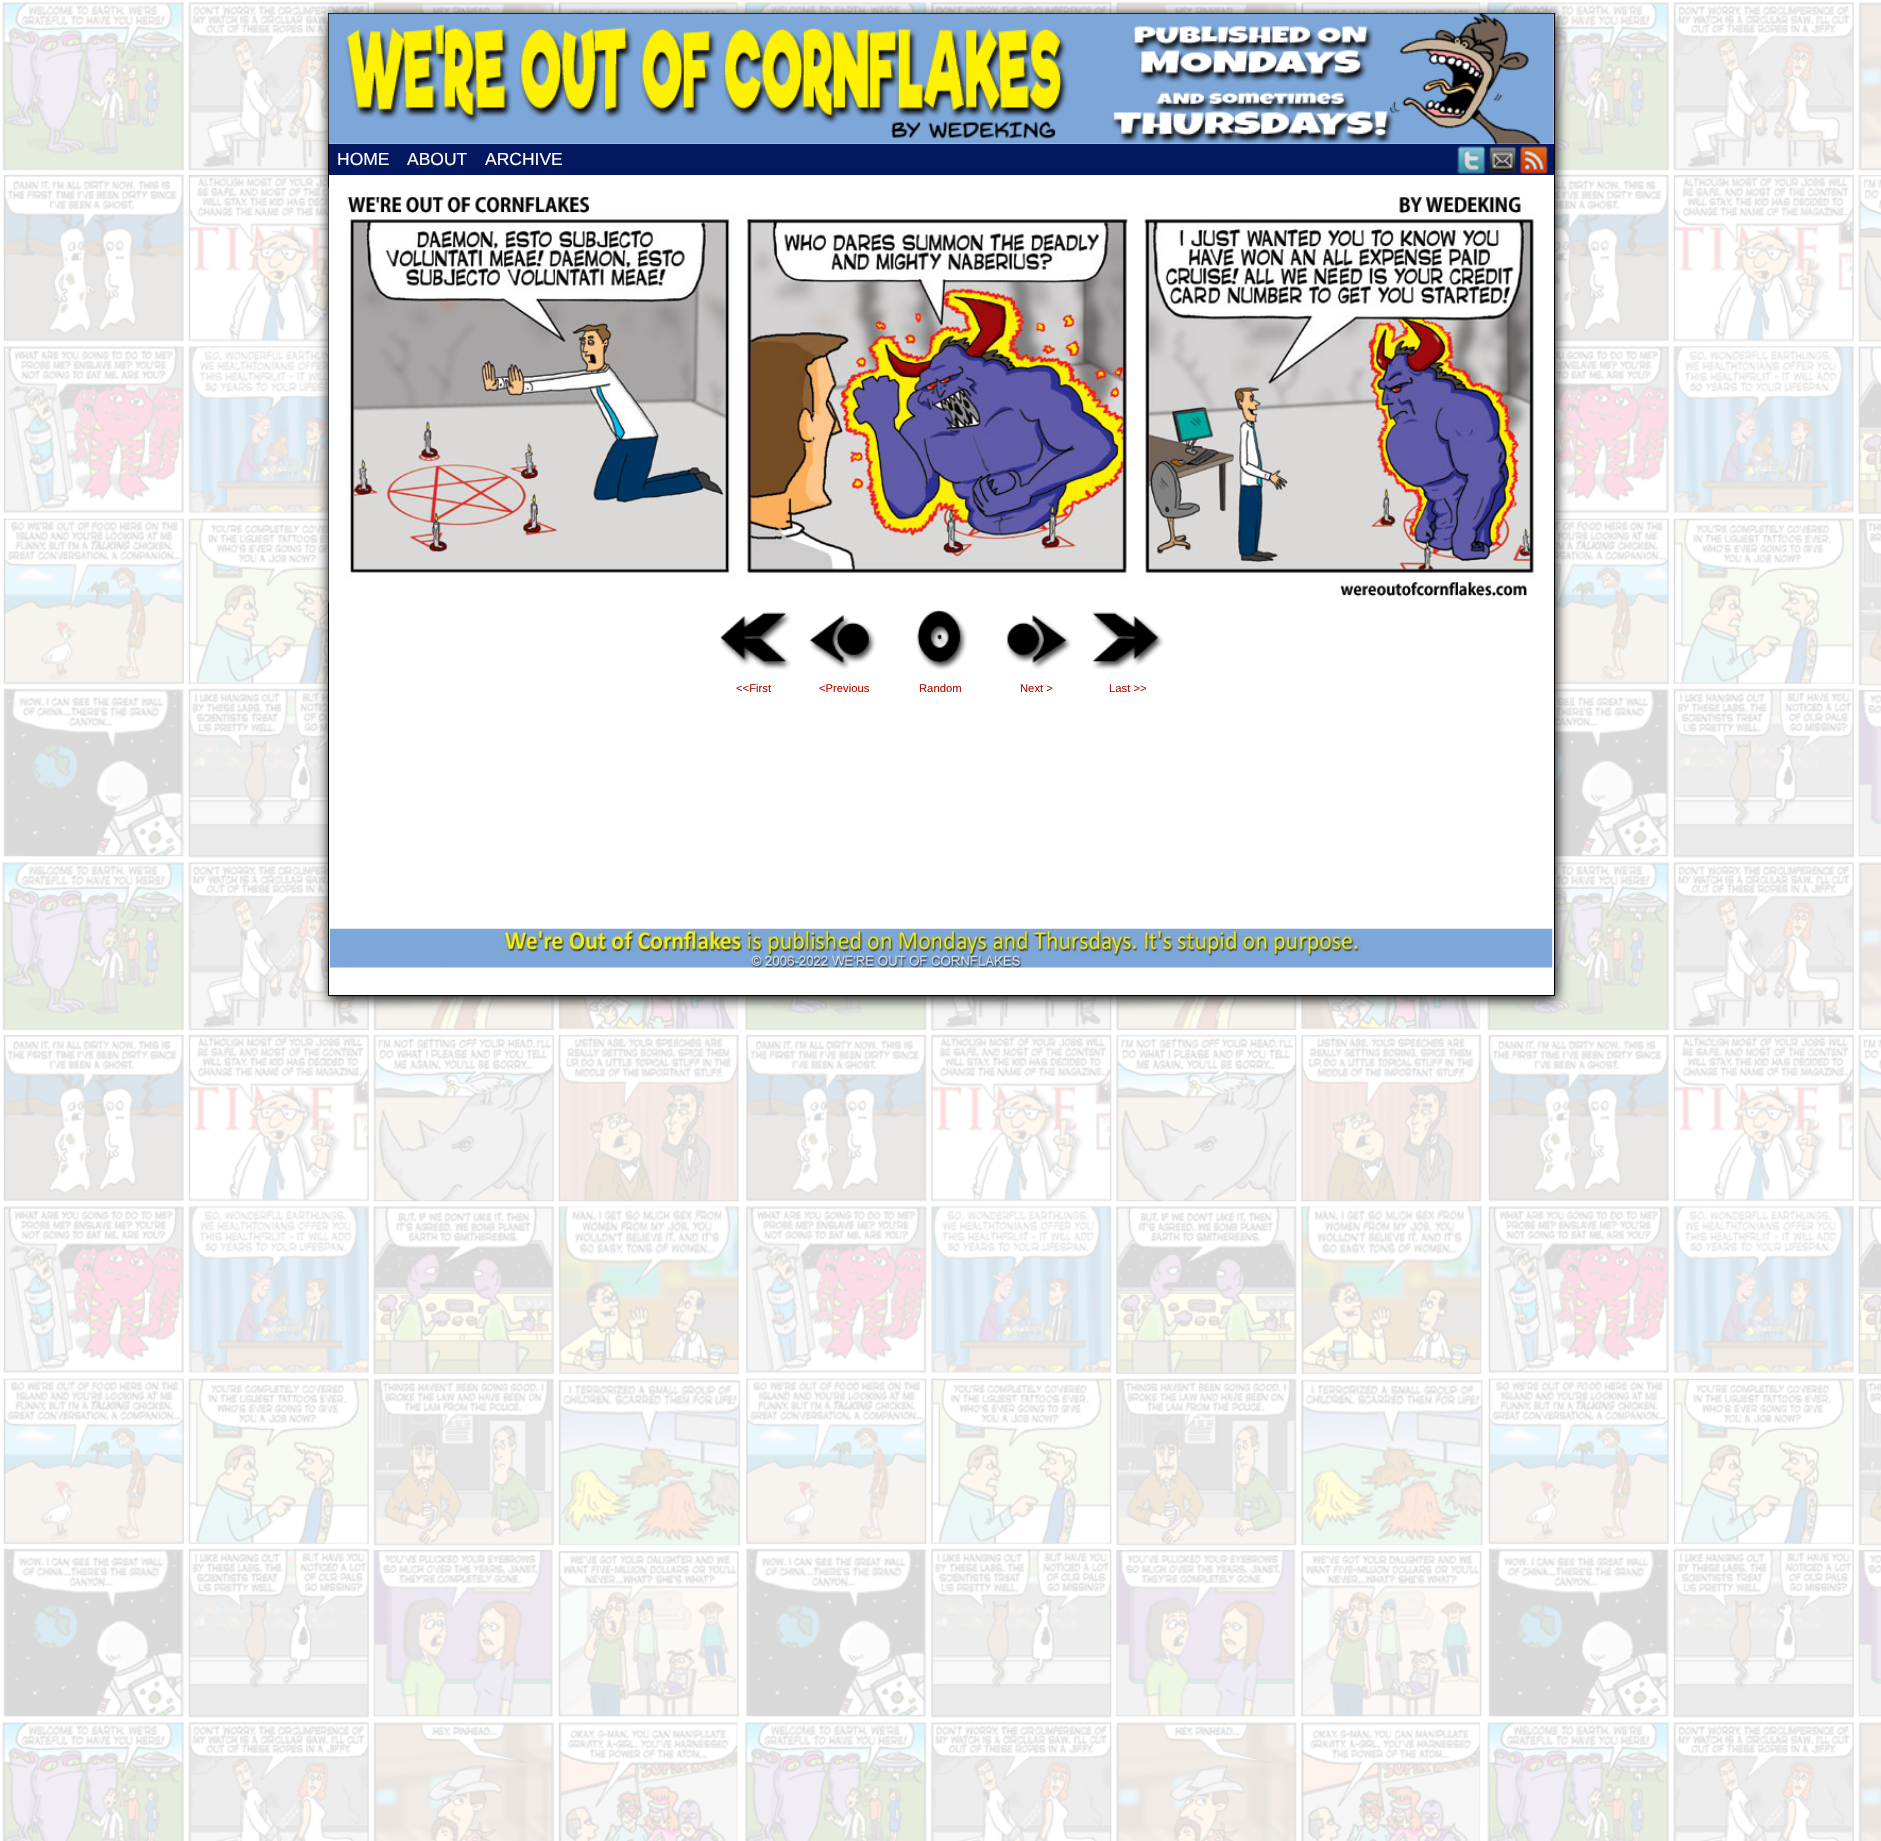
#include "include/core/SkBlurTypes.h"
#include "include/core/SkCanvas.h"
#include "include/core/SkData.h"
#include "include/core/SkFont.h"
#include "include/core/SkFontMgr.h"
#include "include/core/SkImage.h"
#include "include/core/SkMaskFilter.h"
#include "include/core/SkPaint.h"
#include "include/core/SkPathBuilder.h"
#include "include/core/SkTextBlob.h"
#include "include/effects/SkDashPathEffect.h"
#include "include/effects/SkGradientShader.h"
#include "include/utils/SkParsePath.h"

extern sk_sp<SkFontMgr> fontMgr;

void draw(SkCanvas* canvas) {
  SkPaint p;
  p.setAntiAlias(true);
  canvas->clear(SK_ColorWHITE);
  canvas->drawImageRect(SkImages::DeferredFromEncodedData(SkData::MakeFromFileName("images/1.png")), SkRect::MakeLTRB(0, 0, 1881, 1841), SkSamplingOptions());
  p.setColor(SK_ColorBLACK);
  p.setMaskFilter(SkMaskFilter::MakeBlur(kNormal_SkBlurStyle, 6));
  canvas->drawRect(SkRect::MakeLTRB(329, 15, 1556, 999), p);
  p.setMaskFilter(nullptr);
  p.setColor(SK_ColorWHITE);
  canvas->drawRect(SkRect::MakeLTRB(328.5f, 13.5f, 1554.5f, 995.5f), p);
  p.setStyle(SkPaint::kStroke_Style);
  p.setStrokeWidth(1);
  p.setColor(SK_ColorBLACK);
  canvas->drawRect(SkRect::MakeLTRB(328.5f, 13.5f, 1554.5f, 995.5f), p);
  canvas->drawImageRect(SkImages::DeferredFromEncodedData(SkData::MakeFromFileName("images/2.png")), SkRect::MakeLTRB(328, 13, 1554, 144), SkSamplingOptions());
  p.setStyle(SkPaint::kFill_Style);
  p.setColor(SkColorSetRGB(3, 24, 96));
  canvas->drawRect(SkRect::MakeLTRB(329, 144, 1554, 175), p);
  canvas->drawImageRect(SkImages::DeferredFromEncodedData(SkData::MakeFromFileName("images/3.png")), SkRect::MakeLTRB(1457, 146, 1486, 174), SkSamplingOptions());
  canvas->drawImageRect(SkImages::DeferredFromEncodedData(SkData::MakeFromFileName("images/4.png")), SkRect::MakeLTRB(1488, 146, 1517, 174), SkSamplingOptions());
  canvas->drawImageRect(SkImages::DeferredFromEncodedData(SkData::MakeFromFileName("images/5.png")), SkRect::MakeLTRB(1519, 146, 1548, 174), SkSamplingOptions());
  canvas->drawImageRect(SkImages::DeferredFromEncodedData(SkData::MakeFromFileName("images/6.png")), SkRect::MakeLTRB(328, 187, 1535, 603), SkSamplingOptions());
  canvas->drawImageRect(SkImages::DeferredFromEncodedData(SkData::MakeFromFileName("images/7.png")), SkRect::MakeLTRB(720, 612, 791, 670), SkSamplingOptions());
  canvas->drawImageRect(SkImages::DeferredFromEncodedData(SkData::MakeFromFileName("images/8.png")), SkRect::MakeLTRB(809, 614, 876, 670), SkSamplingOptions());
  canvas->drawImageRect(SkImages::DeferredFromEncodedData(SkData::MakeFromFileName("images/9.png")), SkRect::MakeLTRB(916, 610, 967, 670), SkSamplingOptions());
  canvas->drawImageRect(SkImages::DeferredFromEncodedData(SkData::MakeFromFileName("images/10.png")), SkRect::MakeLTRB(1006, 614, 1072, 670), SkSamplingOptions());
  canvas->drawImageRect(SkImages::DeferredFromEncodedData(SkData::MakeFromFileName("images/11.png")), SkRect::MakeLTRB(1092, 612, 1164, 670), SkSamplingOptions());
  canvas->drawImageRect(SkImages::DeferredFromEncodedData(SkData::MakeFromFileName("images/12.png")), SkRect::MakeLTRB(330, 928, 1553, 968), SkSamplingOptions());
  SkFont font1(fontMgr->matchFamilyStyle("Liberation Sans", SkFontStyle::Normal()), 17.5f);
  font1.setSubpixel(true);
  p.setColor(SK_ColorWHITE);
  canvas->drawString("HOME", 337, 165, font1, p);
  canvas->drawString("ABOUT", 407, 165, font1, p);
  canvas->drawString("ARCHIVE", 485, 165, font1, p);
  SkFont font2(fontMgr->matchFamilyStyle("Liberation Sans", SkFontStyle::Normal()), 11.25f);
  font2.setSubpixel(true);
  p.setColor(SkColorSetRGB(176, 11, 0));
  canvas->drawString("<<First", 736, 692, font2, p);
  canvas->drawString("<Previous", 819, 692, font2, p);
  canvas->drawString("Random", 919, 692, font2, p);
  canvas->drawString("Next >", 1020, 692, font2, p);
  canvas->drawString("Last >>", 1109, 692, font2, p);
}
